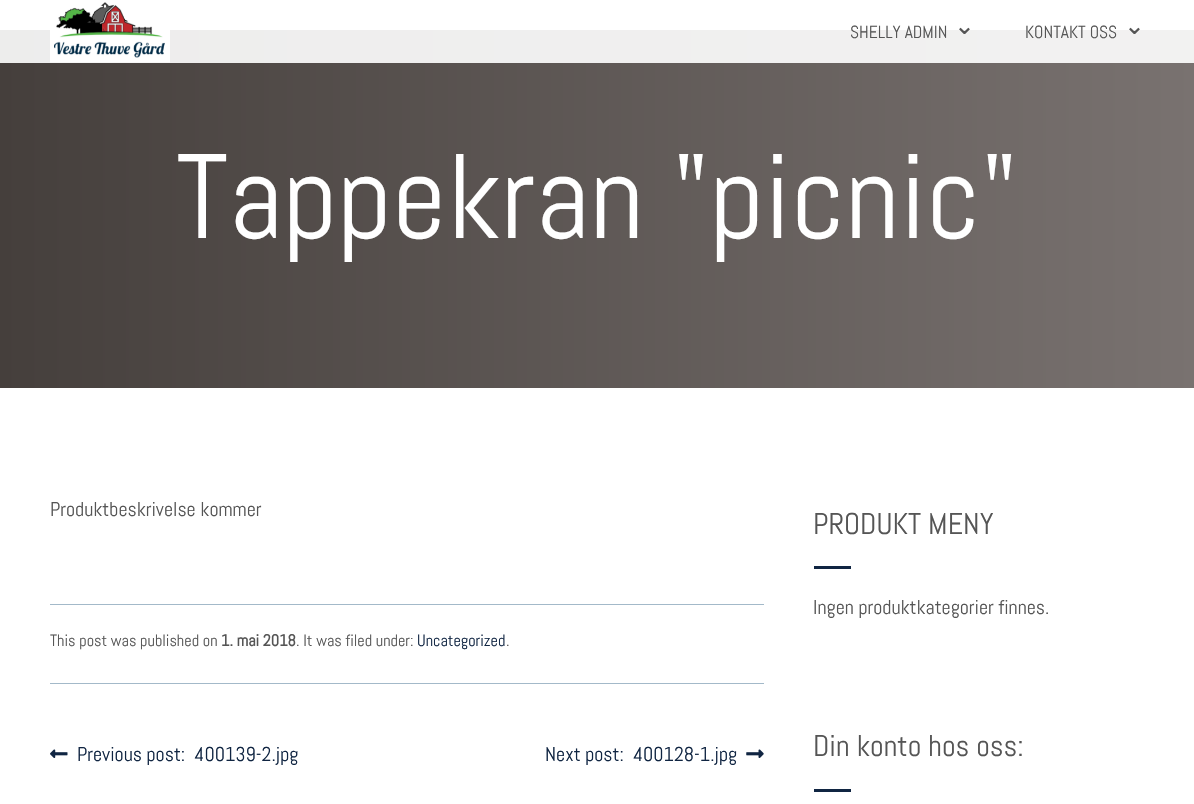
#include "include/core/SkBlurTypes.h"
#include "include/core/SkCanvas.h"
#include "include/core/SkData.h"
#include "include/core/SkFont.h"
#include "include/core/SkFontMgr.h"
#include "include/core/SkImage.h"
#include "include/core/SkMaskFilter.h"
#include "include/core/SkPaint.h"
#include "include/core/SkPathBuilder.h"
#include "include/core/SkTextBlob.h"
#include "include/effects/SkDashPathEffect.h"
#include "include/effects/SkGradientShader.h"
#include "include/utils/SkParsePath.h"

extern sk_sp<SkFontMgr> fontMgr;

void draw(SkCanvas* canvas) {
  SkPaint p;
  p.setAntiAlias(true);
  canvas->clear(SK_ColorWHITE);
  {
    const SkColor colors[] = {SkColorSetRGB(69, 63, 60), SkColorSetRGB(121, 114, 112)};
    const float stops[] = {0, 1};
    const SkPoint ends[] = {{0, 209}, {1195, 209}};
    p.setShader(SkGradientShader::MakeLinear(ends, colors, stops, 2, SkTileMode::kClamp));
    p.setAlpha(255);
  }
  canvas->drawRect(SkRect::MakeLTRB(0, 30, 1194, 388), p);
  p.setShader(nullptr);
  p.setColor(SkColorSetARGB(230, 255, 255, 255));
  canvas->drawRect(SkRect::MakeLTRB(0, 30, 1194, 63), p);
  canvas->drawImageRect(SkImages::DeferredFromEncodedData(SkData::MakeFromFileName("images/1.png")), SkRect::MakeLTRB(50, 2, 170, 63), SkSamplingOptions());
  p.setColor(SkColorSetRGB(163, 185, 201));
  canvas->drawRect(SkRect::MakeLTRB(50, 604, 764, 605), p);
  canvas->drawRect(SkRect::MakeLTRB(50, 683, 764, 684), p);
  canvas->drawImageRect(SkImages::DeferredFromEncodedData(SkData::MakeFromFileName("images/2.png")), SkRect::MakeLTRB(50, 749, 68, 758), SkSamplingOptions());
  canvas->drawImageRect(SkImages::DeferredFromEncodedData(SkData::MakeFromFileName("images/3.png")), SkRect::MakeLTRB(746, 749, 764, 758), SkSamplingOptions());
  p.setColor(SkColorSetRGB(16, 37, 66));
  canvas->drawRect(SkRect::MakeLTRB(814, 566, 851, 569), p);
  canvas->drawRect(SkRect::MakeLTRB(814, 789, 851, 792), p);
  SkFont font1(fontMgr->matchFamilyStyle("Abel", SkFontStyle::Normal()), 17.5f);
  font1.setSubpixel(true);
  p.setColor(SkColorSetRGB(85, 85, 85));
  canvas->drawString("SHELLY ADMIN", 850, 38, font1, p);
  SkFont font2(fontMgr->matchFamilyStyle("DejaVu Sans", SkFontStyle::Normal()), 25);
  font2.setSubpixel(true);
  canvas->drawString("⌄", 954, 34, font2, p);
  canvas->drawString("KONTAKT OSS", 1025, 38, font1, p);
  canvas->drawString("⌄", 1124, 34, font2, p);
  SkFont font3(fontMgr->matchFamilyStyle("Abel", SkFontStyle::Normal()), 120);
  font3.setSubpixel(true);
  p.setColor(SK_ColorWHITE);
  canvas->drawString("Tappekran \"picnic\"", 176, 238, font3, p);
  SkFont font4(fontMgr->matchFamilyStyle("Abel", SkFontStyle::Normal()), 20);
  font4.setSubpixel(true);
  p.setColor(SkColorSetRGB(85, 85, 85));
  canvas->drawString("Produktbeskrivelse kommer", 50, 516, font4, p);
  SkFont font5(fontMgr->matchFamilyStyle("Abel", SkFontStyle::Normal()), 16.25f);
  font5.setSubpixel(true);
  canvas->drawString("This post was published on", 50, 646, font5, p);
  SkFont font6(fontMgr->matchFamilyStyle("Abel", SkFontStyle::Bold()), 16.25f);
  font6.setSubpixel(true);
  canvas->drawString("1. mai 2018", 221, 646, font6, p);
  canvas->drawString(". It was filed under:", 296, 646, font5, p);
  p.setColor(SkColorSetRGB(16, 37, 66));
  canvas->drawString("Uncategorized", 417, 646, font5, p);
  p.setColor(SkColorSetRGB(85, 85, 85));
  canvas->drawString(".", 506, 646, font5, p);
  p.setColor(SkColorSetRGB(16, 37, 66));
  canvas->drawString("Previous post:  400139-2.jpg", 77, 761, font4, p);
  canvas->drawString("Next post:  400128-1.jpg", 545, 761, font4, p);
  SkFont font7(fontMgr->matchFamilyStyle("Abel", SkFontStyle::Normal()), 30);
  font7.setSubpixel(true);
  p.setColor(SkColorSetRGB(85, 85, 85));
  canvas->drawString("PRODUKT MENY", 813, 534, font7, p);
  canvas->drawString("Ingen produktkategorier finnes.", 813, 614, font4, p);
  canvas->drawString("Din konto hos oss:", 813, 756, font7, p);
}
